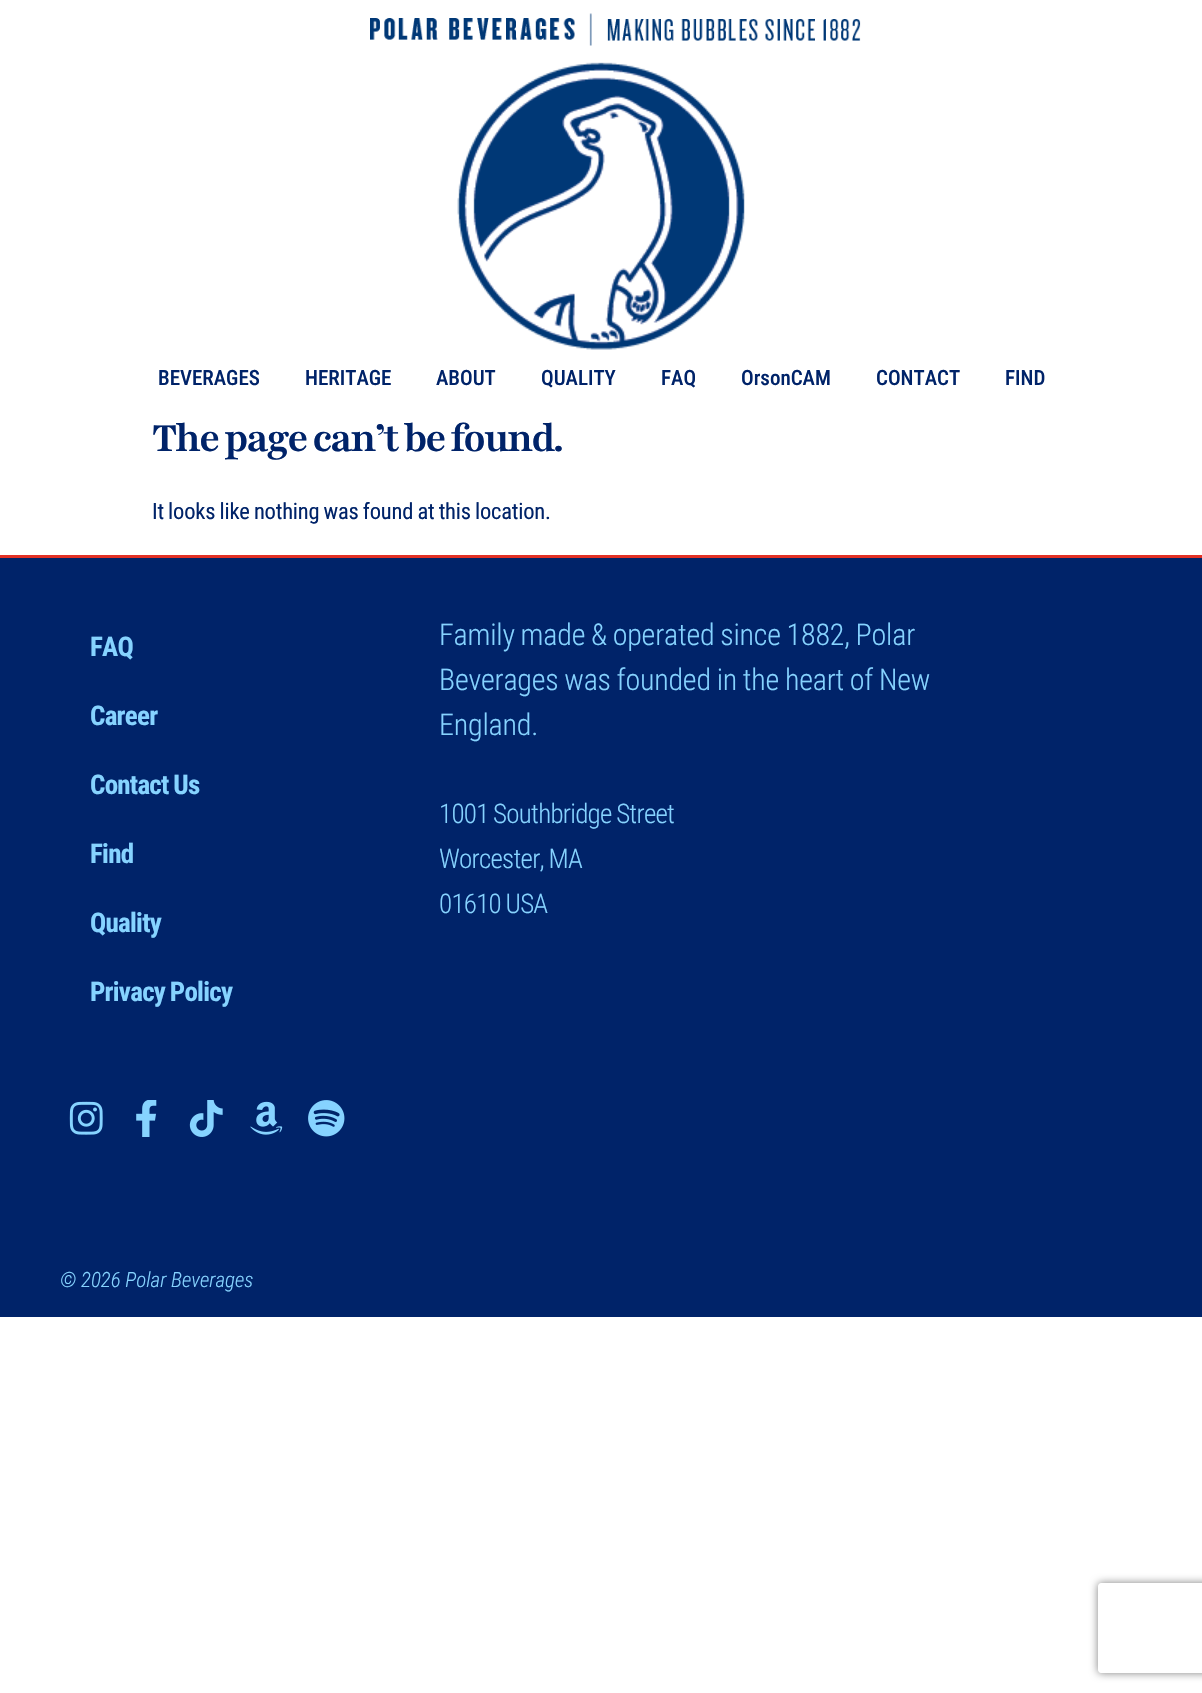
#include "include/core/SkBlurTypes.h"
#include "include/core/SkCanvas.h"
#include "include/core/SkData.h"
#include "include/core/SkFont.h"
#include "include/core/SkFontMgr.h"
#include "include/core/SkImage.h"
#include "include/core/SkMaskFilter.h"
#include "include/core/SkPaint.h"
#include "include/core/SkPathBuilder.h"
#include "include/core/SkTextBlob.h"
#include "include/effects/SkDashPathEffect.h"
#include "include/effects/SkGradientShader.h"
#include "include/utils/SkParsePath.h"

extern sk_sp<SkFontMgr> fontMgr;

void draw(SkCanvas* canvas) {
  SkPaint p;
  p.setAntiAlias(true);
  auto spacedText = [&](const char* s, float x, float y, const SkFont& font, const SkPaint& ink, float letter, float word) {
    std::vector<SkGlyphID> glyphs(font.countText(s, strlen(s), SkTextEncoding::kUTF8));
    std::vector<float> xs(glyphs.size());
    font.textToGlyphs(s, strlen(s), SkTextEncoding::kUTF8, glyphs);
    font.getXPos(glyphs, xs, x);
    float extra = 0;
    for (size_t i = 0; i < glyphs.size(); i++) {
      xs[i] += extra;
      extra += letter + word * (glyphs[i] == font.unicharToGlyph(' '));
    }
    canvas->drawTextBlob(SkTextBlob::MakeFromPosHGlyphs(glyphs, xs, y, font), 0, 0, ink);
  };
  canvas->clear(SK_ColorWHITE);
  canvas->drawImageRect(SkImages::DeferredFromEncodedData(SkData::MakeFromFileName("images/1.png")), SkRect::MakeLTRB(370, 13, 861, 46), SkSamplingOptions());
  canvas->drawImageRect(SkImages::DeferredFromEncodedData(SkData::MakeFromFileName("images/2.png")), SkRect::MakeLTRB(457, 62, 745, 350), SkSamplingOptions());
  p.setColor(SkColorSetRGB(0, 35, 105));
  canvas->drawRect(SkRect::MakeLTRB(0, 558, 1202, 1317), p);
  p.setColor(SkColorSetRGB(226, 49, 37));
  canvas->drawRect(SkRect::MakeLTRB(0, 555, 1202, 558), p);
  canvas->drawImageRect(SkImages::DeferredFromEncodedData(SkData::MakeFromFileName("images/3.png")), SkRect::MakeLTRB(69, 1101, 103, 1135), SkSamplingOptions());
  canvas->drawImageRect(SkImages::DeferredFromEncodedData(SkData::MakeFromFileName("images/4.png")), SkRect::MakeLTRB(136, 1100, 157, 1137), SkSamplingOptions());
  canvas->drawImageRect(SkImages::DeferredFromEncodedData(SkData::MakeFromFileName("images/5.png")), SkRect::MakeLTRB(189, 1100, 223, 1137), SkSamplingOptions());
  canvas->drawImageRect(SkImages::DeferredFromEncodedData(SkData::MakeFromFileName("images/6.png")), SkRect::MakeLTRB(250, 1101, 283, 1135), SkSamplingOptions());
  canvas->drawImageRect(SkImages::DeferredFromEncodedData(SkData::MakeFromFileName("images/7.png")), SkRect::MakeLTRB(308, 1100, 345, 1137), SkSamplingOptions());
  canvas->save();
  canvas->clipPath(SkPathBuilder(SkPathFillType::kEvenOdd).moveTo(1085, 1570).lineTo(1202, 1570).lineTo(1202, 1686).lineTo(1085, 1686).close().moveTo(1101, 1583).lineTo(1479, 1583).cubicTo(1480.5f, 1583, 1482, 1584.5f, 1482, 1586).lineTo(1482, 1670).cubicTo(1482, 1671.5f, 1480.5f, 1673, 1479, 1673).lineTo(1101, 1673).cubicTo(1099.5f, 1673, 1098, 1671.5f, 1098, 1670).lineTo(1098, 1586).cubicTo(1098, 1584.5f, 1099.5f, 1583, 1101, 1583).close().detach(), true);
  p.setColor(SkColorSetRGB(128, 128, 128));
  p.setMaskFilter(SkMaskFilter::MakeBlur(kNormal_SkBlurStyle, 4));
  canvas->drawRoundRect(SkRect::MakeLTRB(1098, 1583, 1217, 1673), 3, 3, p);
  p.setMaskFilter(nullptr);
  canvas->restore();
  SkFont font1(fontMgr->matchFamilyStyle("Roboto Condensed", SkFontStyle(500, SkFontStyle::kNormal_Width, SkFontStyle::kUpright_Slant)), 21);
  font1.setSubpixel(true);
  p.setColor(SkColorSetRGB(0, 35, 105));
  canvas->drawString("BEVERAGES", 158, 385, font1, p);
  canvas->drawString("HERITAGE", 305, 385, font1, p);
  canvas->drawString("ABOUT", 436, 385, font1, p);
  canvas->drawString("QUALITY", 541, 385, font1, p);
  canvas->drawString("FAQ", 661, 385, font1, p);
  canvas->drawString("OrsonCAM", 741, 385, font1, p);
  canvas->drawString("CONTACT", 876, 385, font1, p);
  canvas->drawString("FIND", 1005, 385, font1, p);
  SkFont font2(fontMgr->matchFamilyStyle("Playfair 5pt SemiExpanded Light", SkFontStyle::Bold()), 45);
  font2.setSubpixel(true);
  spacedText("The page can’t be found.", 152, 451, font2, p, -2.25f, -0.75f);
  SkFont font3(fontMgr->matchFamilyStyle("Roboto Condensed", SkFontStyle::Normal()), 22.5f);
  font3.setSubpixel(true);
  spacedText("It looks like nothing was found at this location.", 152, 519, font3, p, -0.2f, -0.75f);
  SkFont font4(fontMgr->matchFamilyStyle("Roboto Condensed", SkFontStyle::Bold()), 27);
  font4.setSubpixel(true);
  p.setColor(SkColorSetRGB(134, 211, 255));
  spacedText("FAQ", 90, 656, font4, p, -0.75f, 0);
  spacedText("Career", 90, 725, font4, p, -0.75f, 0);
  spacedText("Contact Us", 90, 794, font4, p, -0.75f, -0.75f);
  spacedText("Find", 90, 863, font4, p, -0.75f, 0);
  spacedText("Quality", 90, 932, font4, p, -0.75f, 0);
  spacedText("Privacy Policy", 90, 1001, font4, p, -0.75f, -0.75f);
  SkFont font5(fontMgr->matchFamilyStyle("Roboto Condensed", SkFontStyle(300, SkFontStyle::kNormal_Width, SkFontStyle::kUpright_Slant)), 30);
  font5.setSubpixel(true);
  spacedText("Family made & operated since 1882, Polar", 439, 645, font5, p, -0.2f, -0.75f);
  spacedText("Beverages was founded in the heart of New", 439, 690, font5, p, -0.2f, -0.75f);
  spacedText("England.", 439, 735, font5, p, -0.2f, 0);
  SkFont font6(fontMgr->matchFamilyStyle("Roboto Condensed", SkFontStyle(300, SkFontStyle::kNormal_Width, SkFontStyle::kUpright_Slant)), 27);
  font6.setSubpixel(true);
  spacedText("1001 Southbridge Street", 439, 823, font6, p, -0.75f, -0.75f);
  spacedText("Worcester, MA", 439, 868, font6, p, -0.75f, -0.75f);
  spacedText("01610 USA", 439, 913, font6, p, -0.75f, -0.75f);
  SkFont font7(fontMgr->matchFamilyStyle("Roboto Condensed", SkFontStyle(300, SkFontStyle::kNormal_Width, SkFontStyle::kItalic_Slant)), 21);
  font7.setSubpixel(true);
  canvas->drawString("© 2026 Polar Beverages", 60, 1287, font7, p);
}
